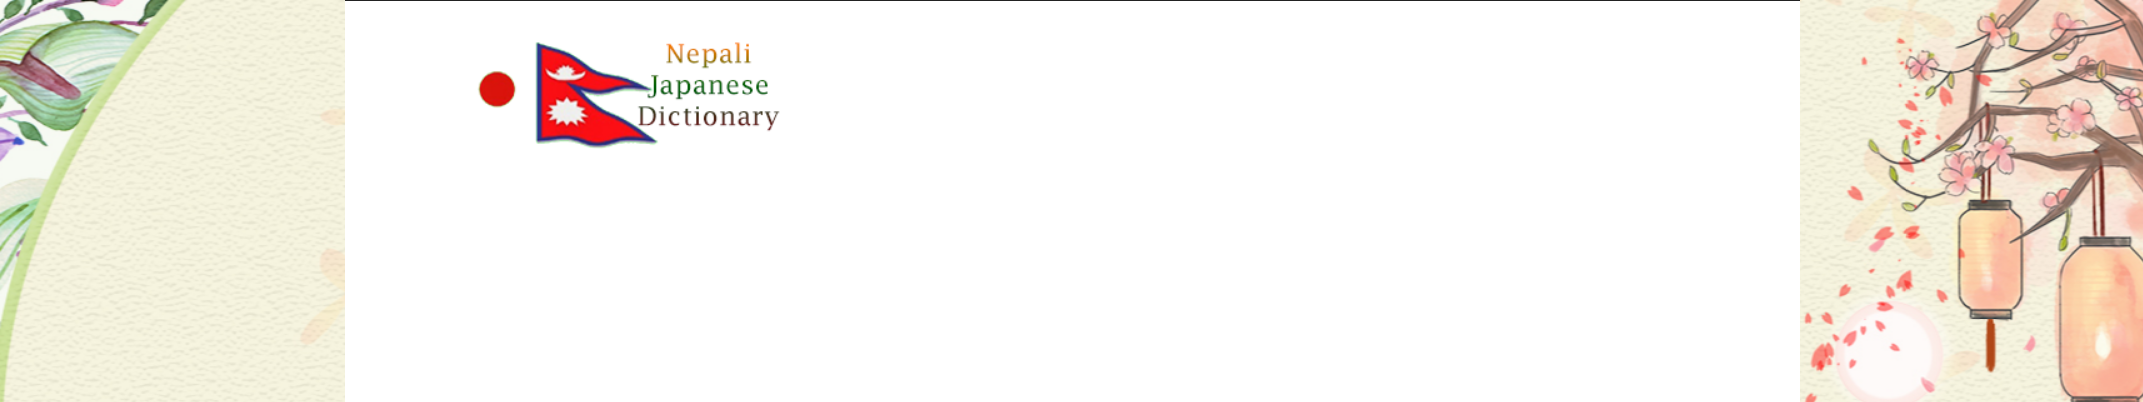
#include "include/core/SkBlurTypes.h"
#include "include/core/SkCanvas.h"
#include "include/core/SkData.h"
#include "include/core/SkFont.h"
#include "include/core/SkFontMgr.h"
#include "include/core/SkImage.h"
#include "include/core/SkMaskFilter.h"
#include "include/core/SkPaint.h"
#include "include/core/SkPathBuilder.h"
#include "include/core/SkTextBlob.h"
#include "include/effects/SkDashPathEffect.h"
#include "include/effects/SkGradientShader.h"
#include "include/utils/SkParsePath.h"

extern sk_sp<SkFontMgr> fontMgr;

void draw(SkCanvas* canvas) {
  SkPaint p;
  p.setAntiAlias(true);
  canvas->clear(SK_ColorWHITE);
  canvas->drawImageRect(SkImages::DeferredFromEncodedData(SkData::MakeFromFileName("images/1.png")), SkRect::MakeLTRB(0, 0, 2143, 402), SkSamplingOptions());
  p.setColor(SkColorSetRGB(34, 34, 34));
  canvas->drawRect(SkRect::MakeLTRB(345, 0, 1800, 1), p);
  p.setColor(SK_ColorWHITE);
  canvas->drawRect(SkRect::MakeLTRB(345, 1, 1800, 402), p);
  canvas->drawImageRect(SkImages::DeferredFromEncodedData(SkData::MakeFromFileName("images/2.png")), SkRect::MakeLTRB(477, 42, 780, 149), SkSamplingOptions());
}
